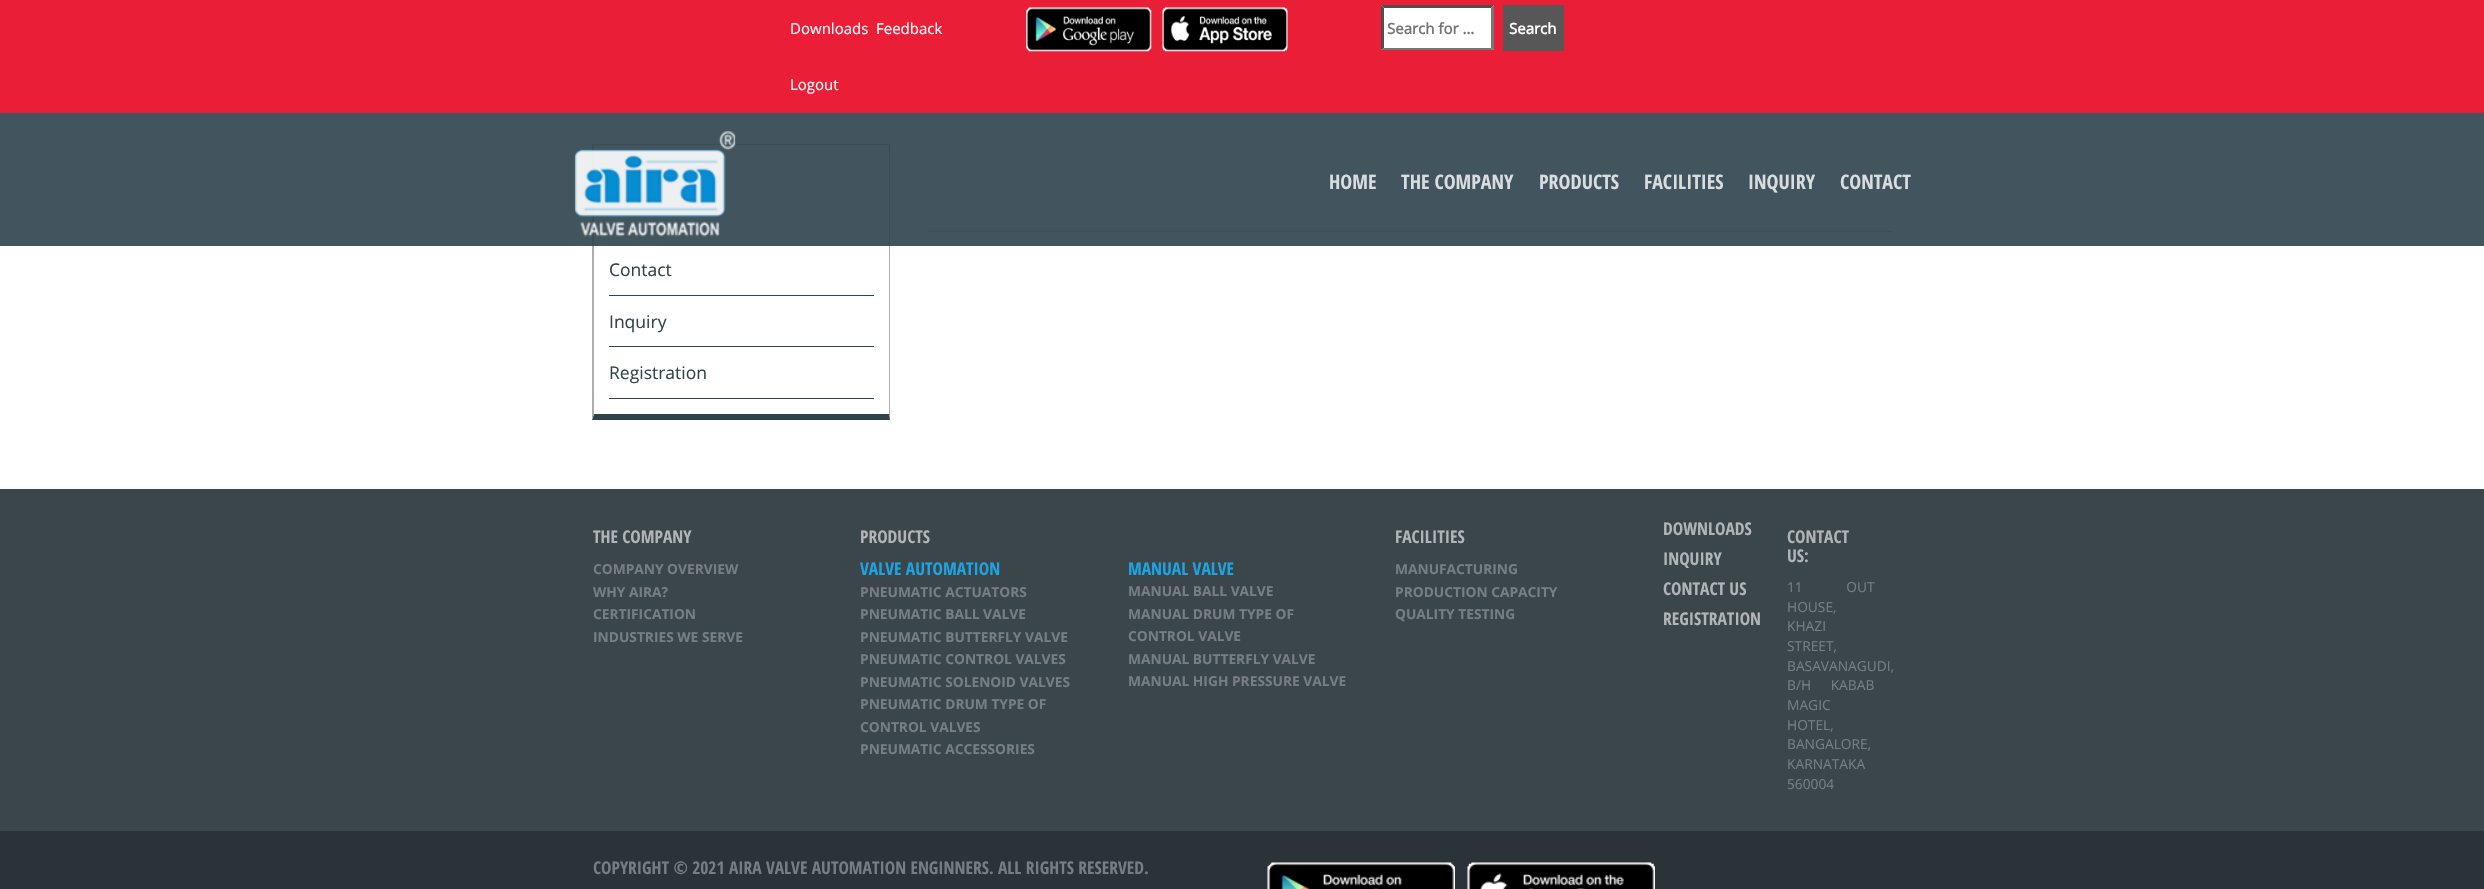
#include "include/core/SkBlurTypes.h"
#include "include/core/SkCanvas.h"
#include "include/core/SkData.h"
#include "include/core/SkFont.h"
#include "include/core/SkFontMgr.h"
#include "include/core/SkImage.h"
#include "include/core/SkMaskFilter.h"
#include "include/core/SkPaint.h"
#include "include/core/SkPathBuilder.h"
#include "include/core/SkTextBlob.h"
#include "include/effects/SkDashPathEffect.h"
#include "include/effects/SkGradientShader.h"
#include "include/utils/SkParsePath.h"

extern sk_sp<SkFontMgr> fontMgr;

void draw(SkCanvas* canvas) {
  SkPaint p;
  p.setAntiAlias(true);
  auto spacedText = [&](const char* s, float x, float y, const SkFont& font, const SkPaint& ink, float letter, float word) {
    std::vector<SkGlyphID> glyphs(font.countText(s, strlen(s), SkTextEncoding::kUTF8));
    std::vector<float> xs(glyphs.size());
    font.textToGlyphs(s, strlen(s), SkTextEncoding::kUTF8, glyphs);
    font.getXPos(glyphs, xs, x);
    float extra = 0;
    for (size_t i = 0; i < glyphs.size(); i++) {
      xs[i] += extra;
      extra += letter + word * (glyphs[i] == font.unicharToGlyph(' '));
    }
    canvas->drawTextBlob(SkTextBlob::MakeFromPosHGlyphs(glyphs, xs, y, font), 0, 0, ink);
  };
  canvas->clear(SK_ColorWHITE);
  p.setColor(SkColorSetRGB(234, 31, 55));
  canvas->drawRect(SkRect::MakeLTRB(0, 0, 2484, 113), p);
  canvas->drawImageRect(SkImages::DeferredFromEncodedData(SkData::MakeFromFileName("images/1.png")), SkRect::MakeLTRB(1026, 7, 1152, 52), SkSamplingOptions());
  canvas->drawImageRect(SkImages::DeferredFromEncodedData(SkData::MakeFromFileName("images/2.png")), SkRect::MakeLTRB(1162, 7, 1288, 52), SkSamplingOptions());
  p.setColor(SK_ColorWHITE);
  canvas->drawRect(SkRect::MakeLTRB(1381, 5, 1494, 50), p);
  p.setColor(SkColorSetRGB(79, 79, 79));
  canvas->drawPath(SkPathBuilder().moveTo(1381, 5).lineTo(1494, 5).lineTo(1491, 8).lineTo(1384, 8).close().detach(), p);
  p.setColor(SkColorSetRGB(118, 118, 118));
  canvas->drawPath(SkPathBuilder().moveTo(1494, 5).lineTo(1494, 50).lineTo(1491, 48).lineTo(1491, 8).close().detach(), p);
  canvas->drawPath(SkPathBuilder().moveTo(1494, 50).lineTo(1381, 50).lineTo(1384, 48).lineTo(1491, 48).close().detach(), p);
  p.setColor(SkColorSetRGB(79, 79, 79));
  canvas->drawPath(SkPathBuilder().moveTo(1381, 50).lineTo(1381, 5).lineTo(1384, 8).lineTo(1384, 48).close().detach(), p);
  p.setColor(SkColorSetRGB(87, 87, 87));
  canvas->drawRect(SkRect::MakeLTRB(1503, 5, 1564, 51), p);
  p.setColor(SkColorSetRGB(198, 198, 198));
  canvas->drawRect(SkRect::MakeLTRB(928, 231, 1893, 232), p);
  p.setColor(SkColorSetRGB(174, 174, 174));
  canvas->drawRect(SkRect::MakeLTRB(593, 144, 890, 145), p);
  canvas->drawPath(SkPathBuilder().moveTo(890, 144).lineTo(890, 420).lineTo(889, 414).lineTo(889, 145).close().detach(), p);
  p.setColor(SkColorSetRGB(48, 66, 74));
  canvas->drawPath(SkPathBuilder().moveTo(890, 420).lineTo(592, 420).lineTo(594, 414).lineTo(889, 414).close().detach(), p);
  p.setColor(SkColorSetRGB(174, 174, 174));
  canvas->drawPath(SkPathBuilder().moveTo(592, 420).lineTo(592, 144).lineTo(594, 145).lineTo(594, 414).close().detach(), p);
  p.setColor(SkColorSetARGB(230, 45, 65, 75));
  canvas->drawRect(SkRect::MakeLTRB(0, 113, 2484, 246), p);
  canvas->drawImageRect(SkImages::DeferredFromEncodedData(SkData::MakeFromFileName("images/3.png")), SkRect::MakeLTRB(574, 131, 736, 237), SkSamplingOptions());
  p.setColor(SkColorSetRGB(49, 67, 75));
  canvas->drawRect(SkRect::MakeLTRB(609, 295, 874, 296), p);
  canvas->drawRect(SkRect::MakeLTRB(609, 346, 874, 347), p);
  canvas->drawRect(SkRect::MakeLTRB(609, 398, 874, 399), p);
  p.setColor(SkColorSetRGB(59, 70, 75));
  canvas->drawRect(SkRect::MakeLTRB(0, 489, 2484, 831), p);
  p.setColor(SkColorSetRGB(41, 51, 56));
  canvas->drawRect(SkRect::MakeLTRB(0, 831, 2484, 889), p);
  canvas->drawImageRect(SkImages::DeferredFromEncodedData(SkData::MakeFromFileName("images/4.png")), SkRect::MakeLTRB(1267, 862, 1455, 889), SkSamplingOptions());
  canvas->drawImageRect(SkImages::DeferredFromEncodedData(SkData::MakeFromFileName("images/5.png")), SkRect::MakeLTRB(1467, 862, 1655, 889), SkSamplingOptions());
  SkFont font1(fontMgr->matchFamilyStyle("Open Sans", SkFontStyle::Normal()), 15);
  font1.setSubpixel(true);
  p.setColor(SK_ColorWHITE);
  canvas->drawString("Downloads", 790, 34, font1, p);
  canvas->drawString("Feedback", 876, 34, font1, p);
  canvas->drawString("Logout", 790, 90, font1, p);
  SkFont font2(fontMgr->matchFamilyStyle("Open Sans", SkFontStyle::Bold()), 15);
  font2.setSubpixel(true);
  p.setColor(SkColorSetRGB(117, 117, 117));
  canvas->drawString("Search for …", 1387, 34, font2, p);
  p.setColor(SK_ColorWHITE);
  canvas->drawString("Search", 1509, 34, font2, p);
  SkFont font3(fontMgr->matchFamilyStyle("Open Sans Condensed", SkFontStyle::Bold()), 20);
  font3.setSubpixel(true);
  p.setColor(SkColorSetRGB(217, 221, 223));
  canvas->drawString("HOME", 1329, 189, font3, p);
  canvas->drawString("THE COMPANY", 1401, 189, font3, p);
  canvas->drawString("PRODUCTS", 1539, 189, font3, p);
  canvas->drawString("FACILITIES", 1644, 189, font3, p);
  canvas->drawString("INQUIRY", 1748, 189, font3, p);
  canvas->drawString("CONTACT", 1840, 189, font3, p);
  SkFont font4(fontMgr->matchFamilyStyle("Open Sans", SkFontStyle::Normal()), 17.5f);
  font4.setSubpixel(true);
  p.setColor(SkColorSetRGB(49, 67, 75));
  canvas->drawString("Contact", 609, 276, font4, p);
  canvas->drawString("Inquiry", 609, 328, font4, p);
  canvas->drawString("Registration", 609, 379, font4, p);
  SkFont font5(fontMgr->matchFamilyStyle("Open Sans Condensed", SkFontStyle::Bold()), 17.5f);
  font5.setSubpixel(true);
  p.setColor(SkColorSetRGB(177, 181, 183));
  canvas->drawString("THE COMPANY", 593, 543, font5, p);
  SkFont font6(fontMgr->matchFamilyStyle("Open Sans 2", SkFontStyle::Bold()), 13.75f);
  font6.setSubpixel(true);
  p.setColor(SkColorSetRGB(118, 126, 129));
  canvas->drawString("COMPANY OVERVIEW", 593, 574, font6, p);
  canvas->drawString("WHY AIRA?", 593, 597, font6, p);
  canvas->drawString("CERTIFICATION", 593, 619, font6, p);
  canvas->drawString("INDUSTRIES WE SERVE", 593, 642, font6, p);
  p.setColor(SkColorSetRGB(177, 181, 183));
  canvas->drawString("PRODUCTS", 860, 543, font5, p);
  p.setColor(SkColorSetRGB(28, 165, 229));
  canvas->drawString("VALVE AUTOMATION", 860, 575, font5, p);
  p.setColor(SkColorSetRGB(118, 126, 129));
  canvas->drawString("PNEUMATIC ACTUATORS", 860, 597, font6, p);
  canvas->drawString("PNEUMATIC BALL VALVE", 860, 619, font6, p);
  canvas->drawString("PNEUMATIC BUTTERFLY VALVE", 860, 642, font6, p);
  canvas->drawString("PNEUMATIC CONTROL VALVES", 860, 664, font6, p);
  canvas->drawString("PNEUMATIC SOLENOID VALVES", 860, 687, font6, p);
  canvas->drawString("PNEUMATIC DRUM TYPE OF", 860, 709, font6, p);
  canvas->drawString("CONTROL VALVES", 860, 732, font6, p);
  canvas->drawString("PNEUMATIC ACCESSORIES", 860, 754, font6, p);
  p.setColor(SkColorSetRGB(28, 165, 229));
  canvas->drawString("MANUAL VALVE", 1128, 575, font5, p);
  p.setColor(SkColorSetRGB(118, 126, 129));
  canvas->drawString("MANUAL BALL VALVE", 1128, 596, font6, p);
  canvas->drawString("MANUAL DRUM TYPE OF", 1128, 619, font6, p);
  canvas->drawString("CONTROL VALVE", 1128, 641, font6, p);
  canvas->drawString("MANUAL BUTTERFLY VALVE", 1128, 664, font6, p);
  canvas->drawString("MANUAL HIGH PRESSURE VALVE", 1128, 686, font6, p);
  p.setColor(SkColorSetRGB(177, 181, 183));
  canvas->drawString("FACILITIES", 1395, 543, font5, p);
  p.setColor(SkColorSetRGB(118, 126, 129));
  canvas->drawString("MANUFACTURING", 1395, 574, font6, p);
  canvas->drawString("PRODUCTION CAPACITY", 1395, 597, font6, p);
  canvas->drawString("QUALITY TESTING", 1395, 619, font6, p);
  p.setColor(SkColorSetRGB(177, 181, 183));
  canvas->drawString("DOWNLOADS", 1663, 535, font5, p);
  canvas->drawString("INQUIRY", 1663, 565, font5, p);
  canvas->drawString("CONTACT US", 1663, 595, font5, p);
  canvas->drawString("REGISTRATION", 1663, 625, font5, p);
  canvas->drawString("CONTACT", 1787, 543, font5, p);
  canvas->drawString("US:", 1787, 562, font5, p);
  SkFont font7(fontMgr->matchFamilyStyle("Open Sans", SkFontStyle::Normal()), 13.75f);
  font7.setSubpixel(true);
  p.setColor(SkColorSetRGB(118, 126, 129));
  spacedText("11 OUT", 1787, 592, font7, p, 0, 40);
  canvas->drawString("HOUSE,", 1787, 612, font7, p);
  canvas->drawString("KHAZI", 1787, 631, font7, p);
  canvas->drawString("STREET,", 1787, 651, font7, p);
  canvas->drawString("BASAVANAGUDI,", 1787, 671, font7, p);
  spacedText("B/H KABAB", 1787, 690, font7, p, 0, 16);
  canvas->drawString("MAGIC", 1787, 710, font7, p);
  canvas->drawString("HOTEL,", 1787, 730, font7, p);
  canvas->drawString("BANGALORE,", 1787, 749, font7, p);
  canvas->drawString("KARNATAKA", 1787, 769, font7, p);
  canvas->drawString("560004", 1787, 789, font7, p);
  canvas->drawString("COPYRIGHT © 2021 AIRA VALVE AUTOMATION ENGINNERS. ALL RIGHTS RESERVED.", 593, 874, font5, p);
}
